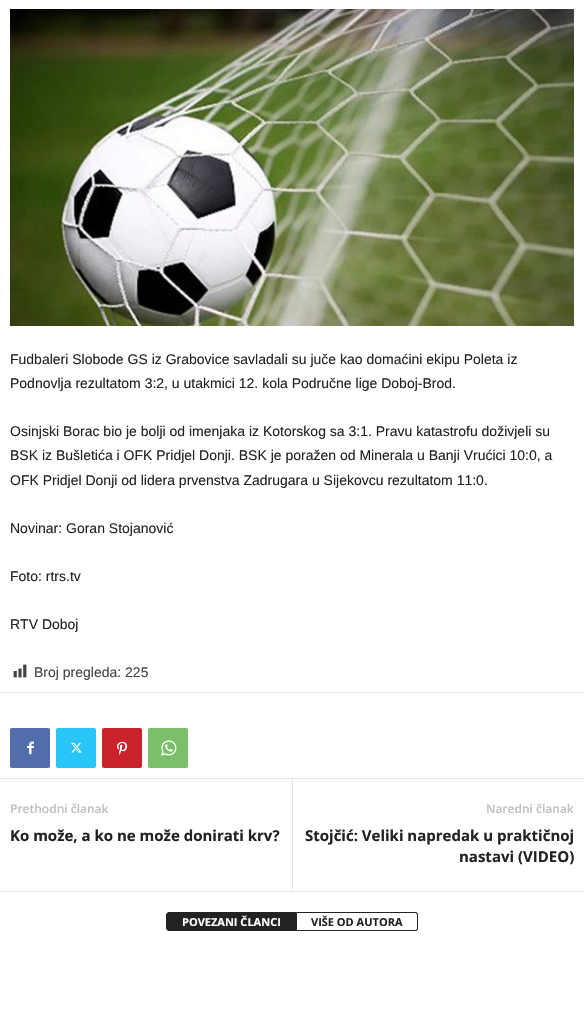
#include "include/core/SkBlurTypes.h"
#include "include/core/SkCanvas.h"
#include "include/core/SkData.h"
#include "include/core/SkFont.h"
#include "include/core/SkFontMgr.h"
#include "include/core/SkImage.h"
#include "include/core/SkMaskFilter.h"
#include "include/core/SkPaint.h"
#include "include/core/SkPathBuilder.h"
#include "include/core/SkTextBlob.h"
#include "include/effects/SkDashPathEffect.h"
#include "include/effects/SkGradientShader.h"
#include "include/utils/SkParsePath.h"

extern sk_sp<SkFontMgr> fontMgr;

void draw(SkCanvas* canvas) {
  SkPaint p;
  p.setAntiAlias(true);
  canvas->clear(SK_ColorWHITE);
  canvas->drawImageRect(SkImages::DeferredFromEncodedData(SkData::MakeFromFileName("images/1.png")), SkRect::MakeLTRB(10, 9, 574, 326), SkSamplingOptions());
  canvas->drawImageRect(SkImages::DeferredFromEncodedData(SkData::MakeFromFileName("images/2.png")), SkRect::MakeLTRB(13, 664, 27, 678), SkSamplingOptions());
  p.setColor(SkColorSetRGB(230, 230, 230));
  canvas->drawRect(SkRect::MakeLTRB(0, 692, 584, 693), p);
  p.setColor(SkColorSetRGB(81, 110, 171));
  canvas->drawRoundRect(SkRect::MakeLTRB(10, 728, 50, 768), 2, 2, p);
  canvas->drawImageRect(SkImages::DeferredFromEncodedData(SkData::MakeFromFileName("images/3.png")), SkRect::MakeLTRB(27, 741, 34, 755), SkSamplingOptions());
  p.setColor(SkColorSetRGB(41, 197, 246));
  canvas->drawRoundRect(SkRect::MakeLTRB(56, 728, 96, 768), 2, 2, p);
  canvas->drawImageRect(SkImages::DeferredFromEncodedData(SkData::MakeFromFileName("images/4.png")), SkRect::MakeLTRB(71, 742, 82, 753), SkSamplingOptions());
  p.setColor(SkColorSetRGB(202, 33, 42));
  canvas->drawRoundRect(SkRect::MakeLTRB(102, 728, 142, 768), 2, 2, p);
  canvas->drawImageRect(SkImages::DeferredFromEncodedData(SkData::MakeFromFileName("images/5.png")), SkRect::MakeLTRB(117, 741, 128, 755), SkSamplingOptions());
  p.setColor(SkColorSetRGB(123, 191, 106));
  canvas->drawRoundRect(SkRect::MakeLTRB(148, 728, 188, 768), 2, 2, p);
  canvas->drawImageRect(SkImages::DeferredFromEncodedData(SkData::MakeFromFileName("images/6.png")), SkRect::MakeLTRB(161, 740, 177, 756), SkSamplingOptions());
  p.setColor(SkColorSetRGB(230, 230, 230));
  canvas->drawRect(SkRect::MakeLTRB(0, 778, 584, 779), p);
  canvas->drawRect(SkRect::MakeLTRB(292, 779, 293, 891), p);
  canvas->drawRect(SkRect::MakeLTRB(0, 891, 584, 892), p);
  p.setColor(SkColorSetRGB(34, 34, 34));
  canvas->drawPath(SkPathBuilder().moveTo(169, 912.5f).lineTo(296.5f, 912.5f).lineTo(296.5f, 930.5f).lineTo(169, 930.5f).cubicTo(167.5f, 930.5f, 166.5f, 929.5f, 166.5f, 928).lineTo(166.5f, 915).cubicTo(166.5f, 913.5f, 167.5f, 912.5f, 169, 912.5f).close().detach(), p);
  p.setStyle(SkPaint::kStroke_Style);
  p.setStrokeWidth(1);
  canvas->drawPath(SkPathBuilder().moveTo(169, 912.5f).lineTo(296.5f, 912.5f).lineTo(296.5f, 930.5f).lineTo(169, 930.5f).cubicTo(167.5f, 930.5f, 166.5f, 929.5f, 166.5f, 928).lineTo(166.5f, 915).cubicTo(166.5f, 913.5f, 167.5f, 912.5f, 169, 912.5f).close().detach(), p);
  p.setStyle(SkPaint::kFill_Style);
  canvas->drawPath(SkPathBuilder(SkPathFillType::kEvenOdd).moveTo(297, 912).lineTo(415, 912).cubicTo(417, 912, 418, 913, 418, 915).lineTo(418, 928).cubicTo(418, 930, 417, 931, 415, 931).lineTo(297, 931).close().moveTo(297, 913).lineTo(415, 913).cubicTo(416, 913, 417, 914, 417, 915).lineTo(417, 928).cubicTo(417, 929, 416, 930, 415, 930).lineTo(297, 930).close().detach(), p);
  SkFont font1(fontMgr->matchFamilyStyle("Liberation Sans", SkFontStyle::Normal()), 14);
  font1.setSubpixel(true);
  canvas->drawString("Fudbaleri Slobode GS iz Grabovice savladali su juče kao domaćini ekipu Poleta iz", 10, 364, font1, p);
  canvas->drawString("Podnovlja rezultatom 3:2, u utakmici 12. kola Područne lige Doboj-Brod.", 10, 388, font1, p);
  canvas->drawString("Osinjski Borac bio je bolji od imenjaka iz Kotorskog sa 3:1. Pravu katastrofu doživjeli su", 10, 436, font1, p);
  canvas->drawString("BSK iz Bušletića i OFK Pridjel Donji. BSK je poražen od Minerala u Banji Vrućici 10:0, a", 10, 460, font1, p);
  canvas->drawString("OFK Pridjel Donji od lidera prvenstva Zadrugara u Sijekovcu rezultatom 11:0.", 10, 485, font1, p);
  canvas->drawString("Novinar: Goran Stojanović", 10, 533, font1, p);
  canvas->drawString("Foto: rtrs.tv", 10, 581, font1, p);
  canvas->drawString("RTV Doboj", 10, 629, font1, p);
  p.setColor(SkColorSetRGB(68, 68, 68));
  canvas->drawString("Broj pregleda: 225", 34, 677, font1, p);
  SkFont font2(fontMgr->matchFamilyStyle("Open Sans", SkFontStyle(600, SkFontStyle::kNormal_Width, SkFontStyle::kUpright_Slant)), 12);
  font2.setSubpixel(true);
  p.setColor(SkColorSetRGB(193, 193, 193));
  canvas->drawString("Prethodni članak", 10, 813, font2, p);
  SkFont font3(fontMgr->matchFamilyStyle("Open Sans", SkFontStyle::Bold()), 15);
  font3.setSubpixel(true);
  p.setColor(SkColorSetRGB(34, 34, 34));
  canvas->drawString("Ko može, a ko ne može donirati krv?", 10, 841, font3, p);
  p.setColor(SkColorSetRGB(193, 193, 193));
  canvas->drawString("Naredni članak", 486, 813, font2, p);
  p.setColor(SkColorSetRGB(34, 34, 34));
  canvas->drawString("Stojčić: Veliki napredak u praktičnoj", 305, 841, font3, p);
  canvas->drawString("nastavi (VIDEO)", 459, 862, font3, p);
  SkFont font4(fontMgr->matchFamilyStyle("Open Sans", SkFontStyle::Bold()), 11);
  font4.setSubpixel(true);
  p.setColor(SK_ColorWHITE);
  canvas->drawString("POVEZANI ČLANCI", 182, 926, font4, p);
  p.setColor(SkColorSetRGB(34, 34, 34));
  canvas->drawString("VIŠE OD AUTORA", 311, 926, font4, p);
}
